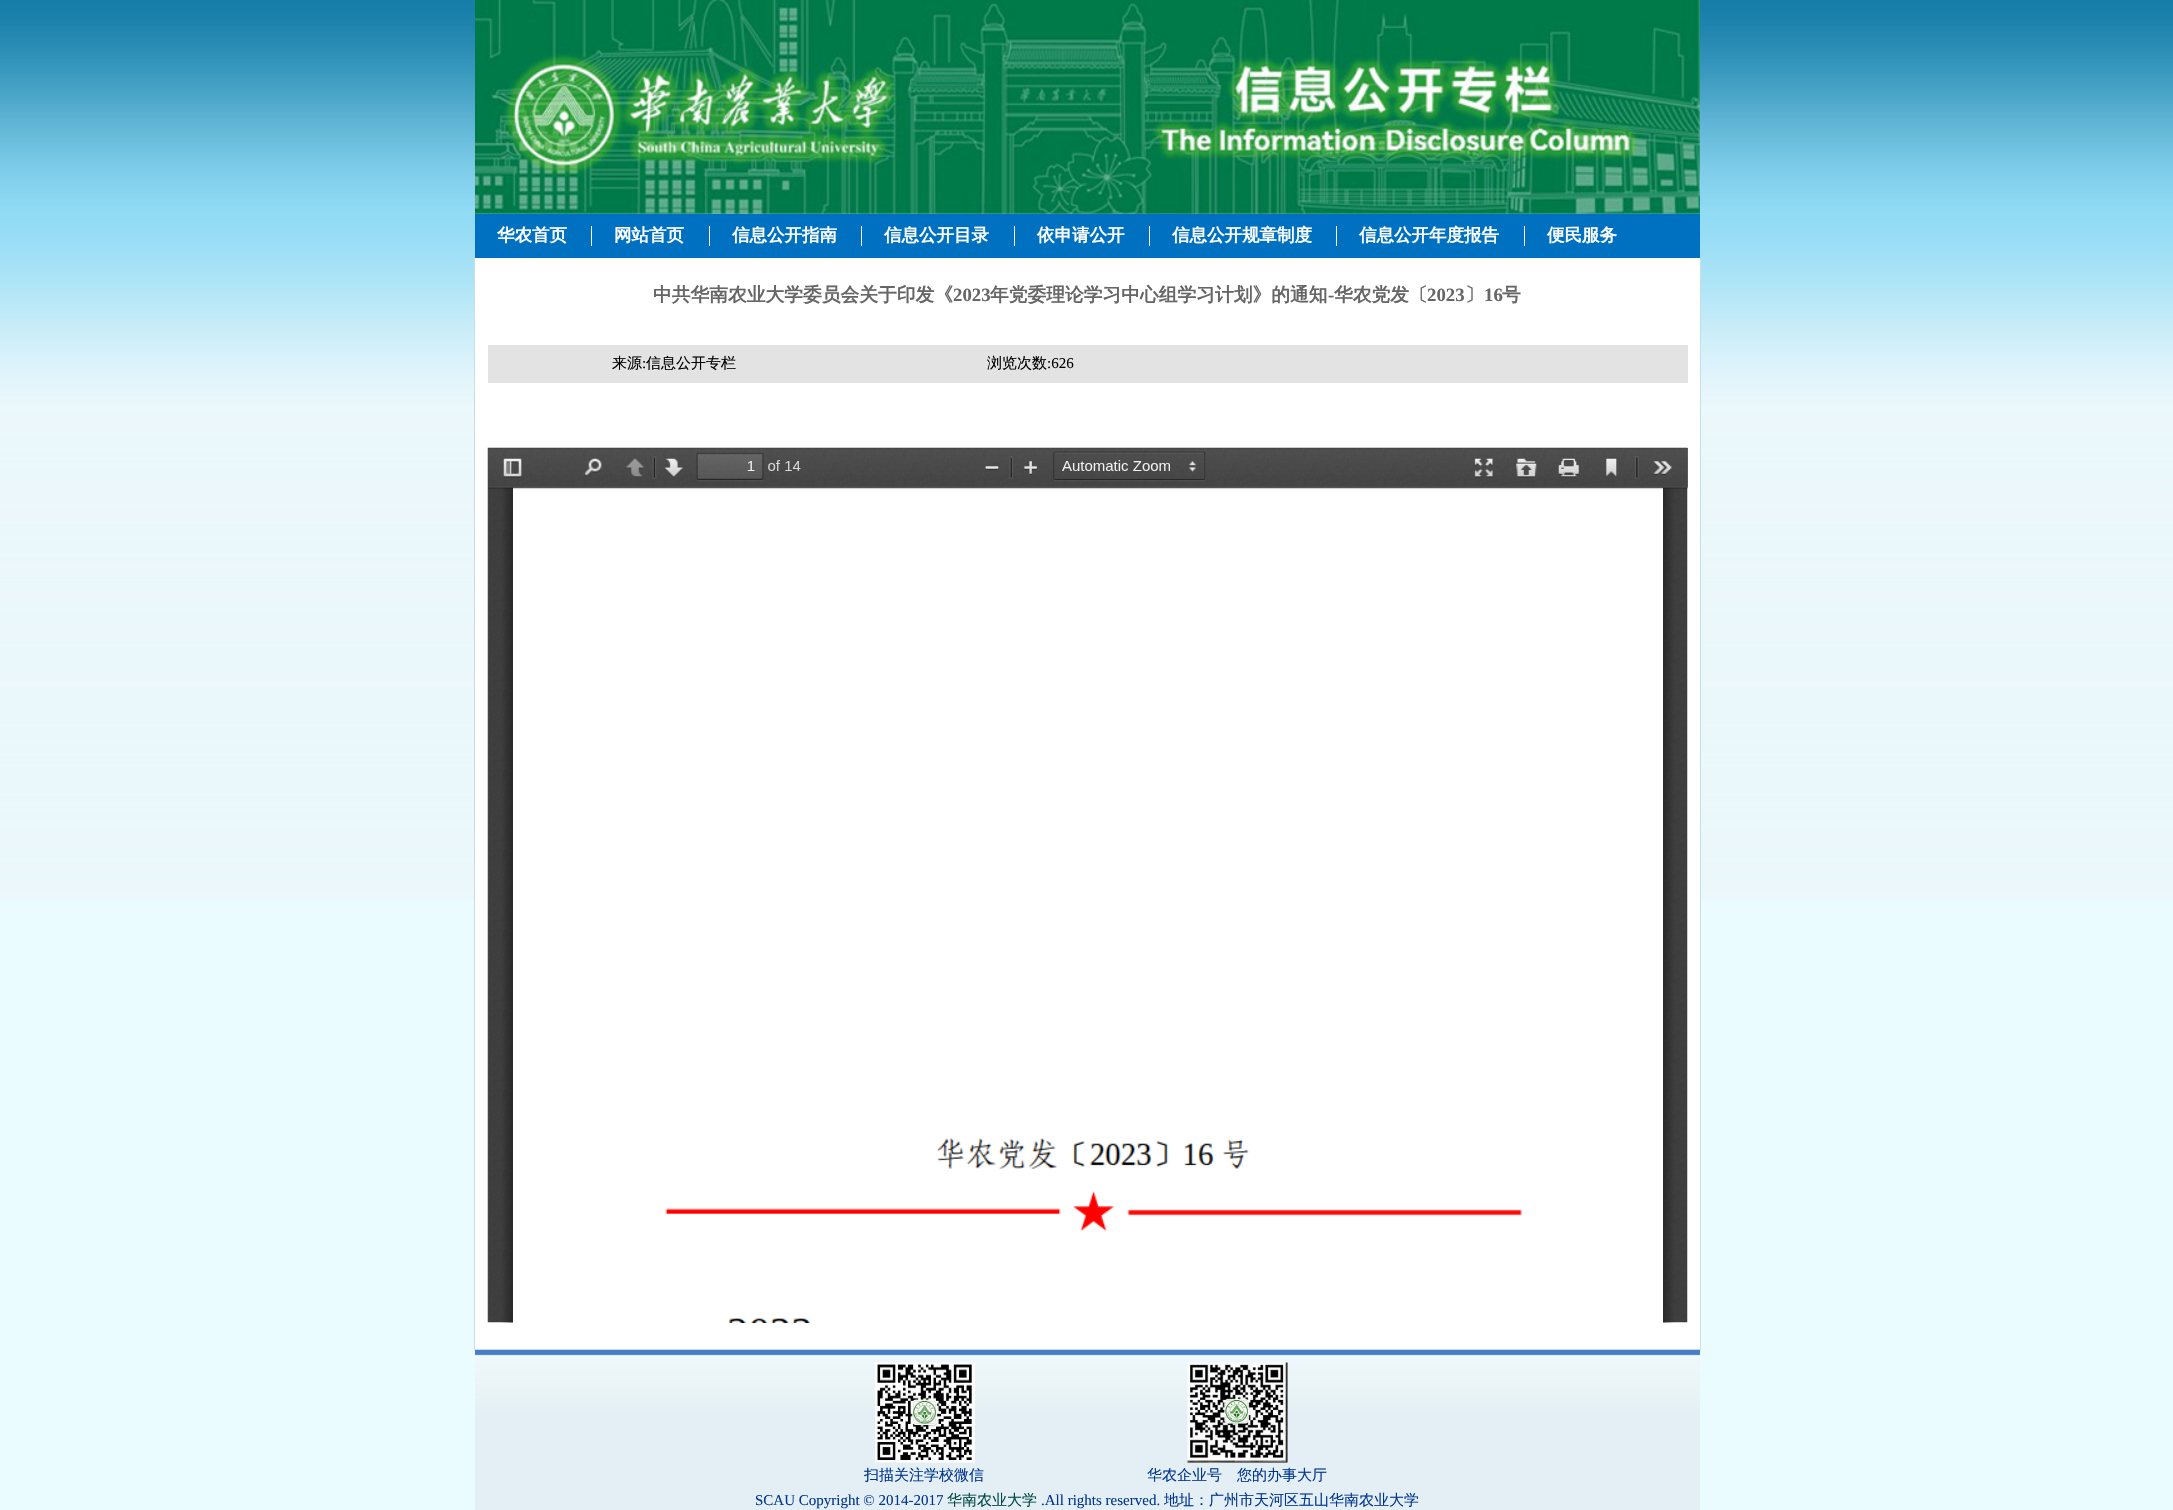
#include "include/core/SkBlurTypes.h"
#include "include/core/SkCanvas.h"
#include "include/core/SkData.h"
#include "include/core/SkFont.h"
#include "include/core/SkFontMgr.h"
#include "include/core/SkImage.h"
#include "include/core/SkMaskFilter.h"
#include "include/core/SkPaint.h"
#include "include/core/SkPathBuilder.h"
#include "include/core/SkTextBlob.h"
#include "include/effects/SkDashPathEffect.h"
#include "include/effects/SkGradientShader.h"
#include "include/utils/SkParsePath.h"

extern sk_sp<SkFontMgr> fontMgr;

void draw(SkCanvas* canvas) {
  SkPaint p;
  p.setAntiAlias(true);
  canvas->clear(SkColorSetRGB(234, 252, 255));
  canvas->drawImageRect(SkImages::DeferredFromEncodedData(SkData::MakeFromFileName("images/1.png")), SkRect::MakeLTRB(0, 0, 2173, 900), SkSamplingOptions());
  canvas->drawImageRect(SkImages::DeferredFromEncodedData(SkData::MakeFromFileName("images/2.png")), SkRect::MakeLTRB(475, 0, 1700, 214), SkSamplingOptions());
  p.setColor(SkColorSetRGB(0, 113, 193));
  canvas->drawRect(SkRect::MakeLTRB(475, 214, 1700, 258), p);
  p.setColor(SK_ColorWHITE);
  canvas->drawRect(SkRect::MakeLTRB(591, 226, 592, 246), p);
  canvas->drawRect(SkRect::MakeLTRB(709, 226, 710, 246), p);
  canvas->drawRect(SkRect::MakeLTRB(861, 226, 862, 246), p);
  canvas->drawRect(SkRect::MakeLTRB(1014, 226, 1015, 246), p);
  canvas->drawRect(SkRect::MakeLTRB(1149, 226, 1150, 246), p);
  canvas->drawRect(SkRect::MakeLTRB(1336, 226, 1337, 246), p);
  canvas->drawRect(SkRect::MakeLTRB(1524, 226, 1525, 246), p);
  canvas->drawRect(SkRect::MakeLTRB(475, 258, 1700, 1349), p);
  p.setColor(SkColorSetRGB(198, 222, 232));
  canvas->drawRect(SkRect::MakeLTRB(1700, 258, 1701, 1350), p);
  canvas->drawRect(SkRect::MakeLTRB(474, 1349, 1701, 1350), p);
  canvas->drawRect(SkRect::MakeLTRB(474, 258, 475, 1350), p);
  p.setColor(SkColorSetRGB(227, 227, 227));
  canvas->drawRect(SkRect::MakeLTRB(488, 345, 1688, 383), p);
  canvas->drawImageRect(SkImages::DeferredFromEncodedData(SkData::MakeFromFileName("images/3.png")), SkRect::MakeLTRB(487, 447, 1688, 1323), SkSamplingOptions());
  canvas->drawImageRect(SkImages::DeferredFromEncodedData(SkData::MakeFromFileName("images/4.png")), SkRect::MakeLTRB(475, 1350, 1700, 1510), SkSamplingOptions());
  canvas->drawImageRect(SkImages::DeferredFromEncodedData(SkData::MakeFromFileName("images/5.png")), SkRect::MakeLTRB(875, 1362, 975, 1463), SkSamplingOptions());
  canvas->drawImageRect(SkImages::DeferredFromEncodedData(SkData::MakeFromFileName("images/6.png")), SkRect::MakeLTRB(1187, 1362, 1288, 1463), SkSamplingOptions());
  SkFont font1(fontMgr->matchFamilyStyle("WenQuanYi Zen Hei", SkFontStyle::Bold()), 17.5f);
  font1.setSubpixel(true);
  p.setColor(SK_ColorWHITE);
  canvas->drawString("华农首页", 497, 241, font1, p);
  canvas->drawString("网站首页", 614, 241, font1, p);
  canvas->drawString("信息公开指南", 732, 241, font1, p);
  canvas->drawString("信息公开目录", 884, 241, font1, p);
  canvas->drawString("依申请公开", 1037, 241, font1, p);
  canvas->drawString("信息公开规章制度", 1172, 241, font1, p);
  canvas->drawString("信息公开年度报告", 1359, 241, font1, p);
  canvas->drawString("便民服务", 1547, 241, font1, p);
  SkFont font2(fontMgr->matchFamilyStyle("WenQuanYi Zen Hei", SkFontStyle::Bold()), 18.75f);
  font2.setSubpixel(true);
  p.setColor(SkColorSetRGB(102, 102, 102));
  canvas->drawString("中共华南农业大学委员会关于印发《", 653, 301, font2, p);
  SkFont font3(fontMgr->matchFamilyStyle("Liberation Serif", SkFontStyle::Bold()), 18.75f);
  font3.setSubpixel(true);
  canvas->drawString("2023", 953, 301, font3, p);
  canvas->drawString("年党委理论学习中心组学习计划》的通知", 990, 301, font2, p);
  canvas->drawString("-", 1328, 301, font3, p);
  canvas->drawString("华农党发〔", 1334, 301, font2, p);
  canvas->drawString("2023", 1427, 301, font3, p);
  canvas->drawString("〕", 1465, 301, font2, p);
  canvas->drawString("16", 1484, 301, font3, p);
  canvas->drawString("号", 1502, 301, font2, p);
  SkFont font4(fontMgr->matchFamilyStyle("WenQuanYi Zen Hei", SkFontStyle(500, SkFontStyle::kNormal_Width, SkFontStyle::kUpright_Slant)), 15);
  font4.setSubpixel(true);
  p.setColor(SK_ColorBLACK);
  canvas->drawString("来源", 612, 368, font4, p);
  SkFont font5(fontMgr->matchFamilyStyle("Liberation Serif", SkFontStyle::Normal()), 15);
  font5.setSubpixel(true);
  canvas->drawString(":", 642, 368, font5, p);
  canvas->drawString("信息公开专栏", 646, 368, font4, p);
  canvas->drawString("浏览次数", 987, 368, font4, p);
  canvas->drawString(":626", 1047, 368, font5, p);
  p.setColor(SkColorSetRGB(1, 54, 144));
  canvas->drawString("扫描关注学校微信", 864, 1480, font4, p);
  canvas->drawString("华农企业号　您的办事大厅", 1147, 1480, font4, p);
  canvas->drawString("SCAU Copyright © 2014-2017", 755, 1505, font5, p);
  p.setColor(SkColorSetRGB(1, 72, 71));
  canvas->drawString("华南农业大学", 947, 1505, font4, p);
  p.setColor(SkColorSetRGB(1, 54, 144));
  canvas->drawString(".All rights reserved.", 1041, 1505, font5, p);
  canvas->drawString("地址：广州市天河区五山华南农业大学", 1164, 1505, font4, p);
}
